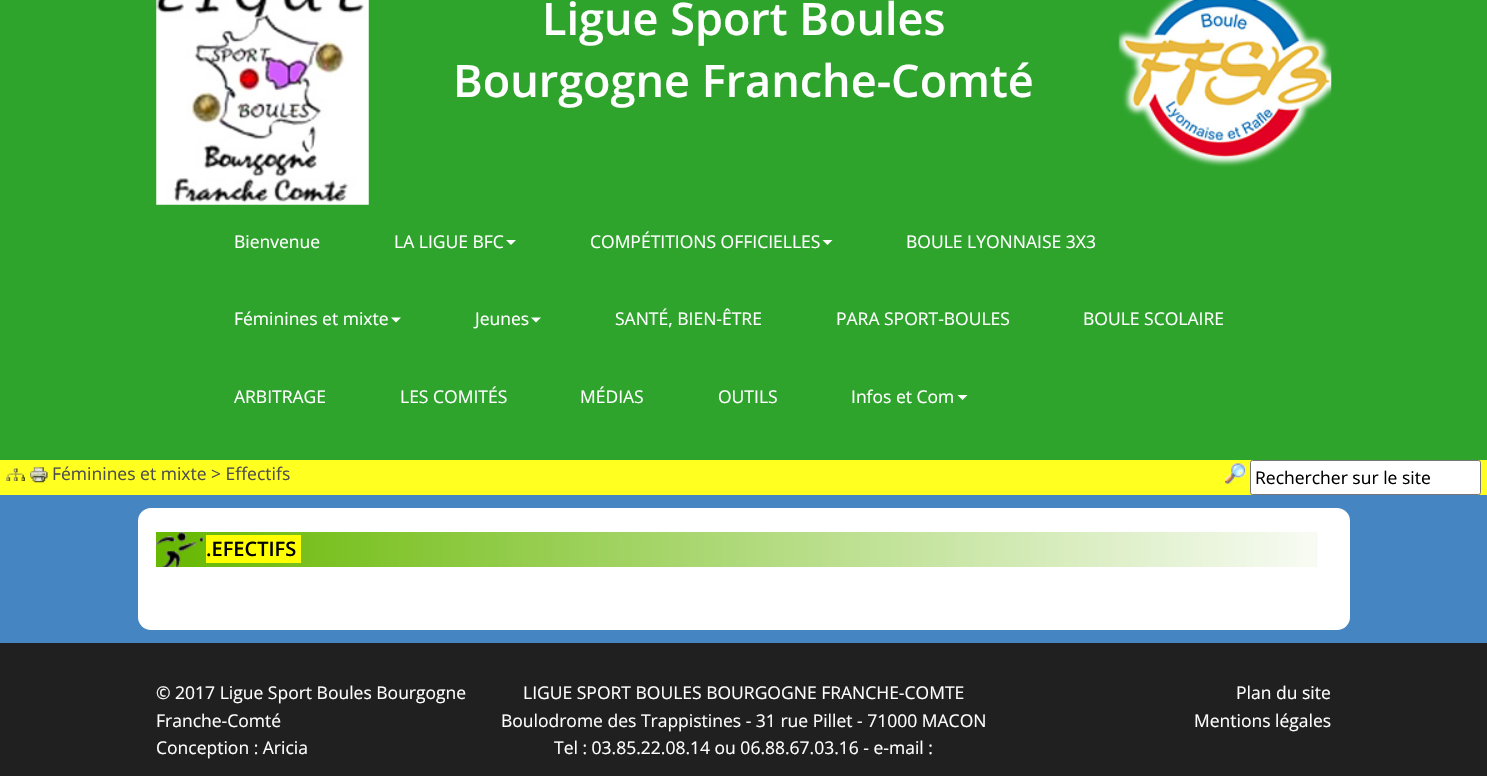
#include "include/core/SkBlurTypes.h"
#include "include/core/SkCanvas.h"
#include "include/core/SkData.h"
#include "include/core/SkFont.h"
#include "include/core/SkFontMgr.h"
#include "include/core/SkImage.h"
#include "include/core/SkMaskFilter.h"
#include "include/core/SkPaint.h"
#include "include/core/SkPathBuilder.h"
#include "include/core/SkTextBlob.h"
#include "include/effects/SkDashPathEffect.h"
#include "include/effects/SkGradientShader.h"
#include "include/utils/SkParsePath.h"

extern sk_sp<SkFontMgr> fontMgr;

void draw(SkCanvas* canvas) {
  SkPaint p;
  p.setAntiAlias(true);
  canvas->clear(SkColorSetRGB(255, 255, 32));
  p.setColor(SkColorSetRGB(46, 164, 45));
  canvas->drawRect(SkRect::MakeLTRB(0, 0, 1487, 460), p);
  canvas->drawImageRect(SkImages::DeferredFromEncodedData(SkData::MakeFromFileName("images/1.png")), SkRect::MakeLTRB(156, 0, 369, 205), SkSamplingOptions());
  canvas->drawImageRect(SkImages::DeferredFromEncodedData(SkData::MakeFromFileName("images/2.png")), SkRect::MakeLTRB(1118, 0, 1332, 167), SkSamplingOptions());
  p.setColor(SK_ColorWHITE);
  canvas->drawPath(SkPathBuilder().moveTo(506, 240).lineTo(516, 240).lineTo(511, 245).close().detach(), p);
  canvas->drawPath(SkPathBuilder().moveTo(822.5f, 240).lineTo(832.5f, 240).lineTo(827.5f, 245).close().detach(), p);
  canvas->drawPath(SkPathBuilder().moveTo(391, 317.5f).lineTo(401, 317.5f).lineTo(396, 322.5f).close().detach(), p);
  canvas->drawPath(SkPathBuilder().moveTo(531, 317.5f).lineTo(541, 317.5f).lineTo(536, 322.5f).close().detach(), p);
  canvas->drawPath(SkPathBuilder().moveTo(957.5f, 395).lineTo(967.5f, 395).lineTo(962.5f, 400).close().detach(), p);
  canvas->drawImageRect(SkImages::DeferredFromEncodedData(SkData::MakeFromFileName("images/3.png")), SkRect::MakeLTRB(6, 468, 25, 481), SkSamplingOptions());
  canvas->drawImageRect(SkImages::DeferredFromEncodedData(SkData::MakeFromFileName("images/4.png")), SkRect::MakeLTRB(30, 467, 48, 483), SkSamplingOptions());
  canvas->drawImageRect(SkImages::DeferredFromEncodedData(SkData::MakeFromFileName("images/5.png")), SkRect::MakeLTRB(1225, 463, 1245, 484), SkSamplingOptions());
  canvas->drawRoundRect(SkRect::MakeLTRB(1250.5f, 460.5f, 1480.5f, 494.5f), 2, 2, p);
  p.setStyle(SkPaint::kStroke_Style);
  p.setStrokeWidth(1);
  p.setColor(SkColorSetRGB(118, 118, 118));
  canvas->drawRoundRect(SkRect::MakeLTRB(1250.5f, 460.5f, 1480.5f, 494.5f), 2, 2, p);
  p.setStyle(SkPaint::kFill_Style);
  p.setColor(SkColorSetRGB(69, 133, 194));
  canvas->drawRect(SkRect::MakeLTRB(0, 495, 1487, 643), p);
  p.setColor(SK_ColorWHITE);
  canvas->drawRoundRect(SkRect::MakeLTRB(138, 508, 1350, 630), 13, 13, p);
  canvas->drawImageRect(SkImages::DeferredFromEncodedData(SkData::MakeFromFileName("images/6.png")), SkRect::MakeLTRB(156, 532, 1318, 567), SkSamplingOptions());
  p.setColor(SkColorSetRGB(255, 255, 0));
  canvas->drawRect(SkRect::MakeLTRB(206, 535, 301, 563), p);
  p.setColor(SkColorSetRGB(32, 32, 32));
  canvas->drawRect(SkRect::MakeLTRB(0, 643, 1487, 776), p);
  SkFont font1(fontMgr->matchFamilyStyle("Open Sans", SkFontStyle(600, SkFontStyle::kNormal_Width, SkFontStyle::kUpright_Slant)), 45);
  font1.setSubpixel(true);
  p.setColor(SK_ColorWHITE);
  canvas->drawString("Ligue Sport Boules", 542, 35, font1, p);
  canvas->drawString("Bourgogne Franche-Comté", 453, 97, font1, p);
  SkFont font2(fontMgr->matchFamilyStyle("Open Sans", SkFontStyle::Normal()), 17.5f);
  font2.setSubpixel(true);
  canvas->drawString("Bienvenue", 234, 248, font2, p);
  canvas->drawString("LA LIGUE BFC", 394, 248, font2, p);
  canvas->drawString("COMPÉTITIONS OFFICIELLES", 590, 248, font2, p);
  canvas->drawString("BOULE LYONNAISE 3X3", 906, 248, font2, p);
  canvas->drawString("Féminines et mixte", 234, 325, font2, p);
  canvas->drawString("Jeunes", 475, 325, font2, p);
  canvas->drawString("SANTÉ, BIEN-ÊTRE", 615, 325, font2, p);
  canvas->drawString("PARA SPORT-BOULES", 836, 325, font2, p);
  canvas->drawString("BOULE SCOLAIRE", 1083, 325, font2, p);
  canvas->drawString("ARBITRAGE", 234, 403, font2, p);
  canvas->drawString("LES COMITÉS", 400, 403, font2, p);
  canvas->drawString("MÉDIAS", 580, 403, font2, p);
  canvas->drawString("OUTILS", 718, 403, font2, p);
  canvas->drawString("Infos et Com", 851, 403, font2, p);
  p.setColor(SkColorSetRGB(78, 78, 78));
  canvas->drawString("Féminines et mixte > Effectifs", 52, 480, font2, p);
  p.setColor(SK_ColorBLACK);
  canvas->drawString("Rechercher sur le site", 1255, 484, font2, p);
  SkFont font3(fontMgr->matchFamilyStyle("Open Sans", SkFontStyle(600, SkFontStyle::kNormal_Width, SkFontStyle::kUpright_Slant)), 20);
  font3.setSubpixel(true);
  canvas->drawString(".EFECTIFS", 206, 556, font3, p);
  p.setColor(SK_ColorWHITE);
  canvas->drawString("© 2017 Ligue Sport Boules Bourgogne", 156, 699, font2, p);
  canvas->drawString("Franche-Comté", 156, 727, font2, p);
  canvas->drawString("Conception : Aricia", 156, 754, font2, p);
  canvas->drawString("LIGUE SPORT BOULES BOURGOGNE FRANCHE-COMTE", 523, 699, font2, p);
  canvas->drawString("Boulodrome des Trappistines - 31 rue Pillet - 71000 MACON", 501, 727, font2, p);
  canvas->drawString("Tel : 03.85.22.08.14 ou 06.88.67.03.16 - e-mail :", 554, 754, font2, p);
  canvas->drawString("Plan du site", 1236, 699, font2, p);
  canvas->drawString("Mentions légales", 1194, 727, font2, p);
}
